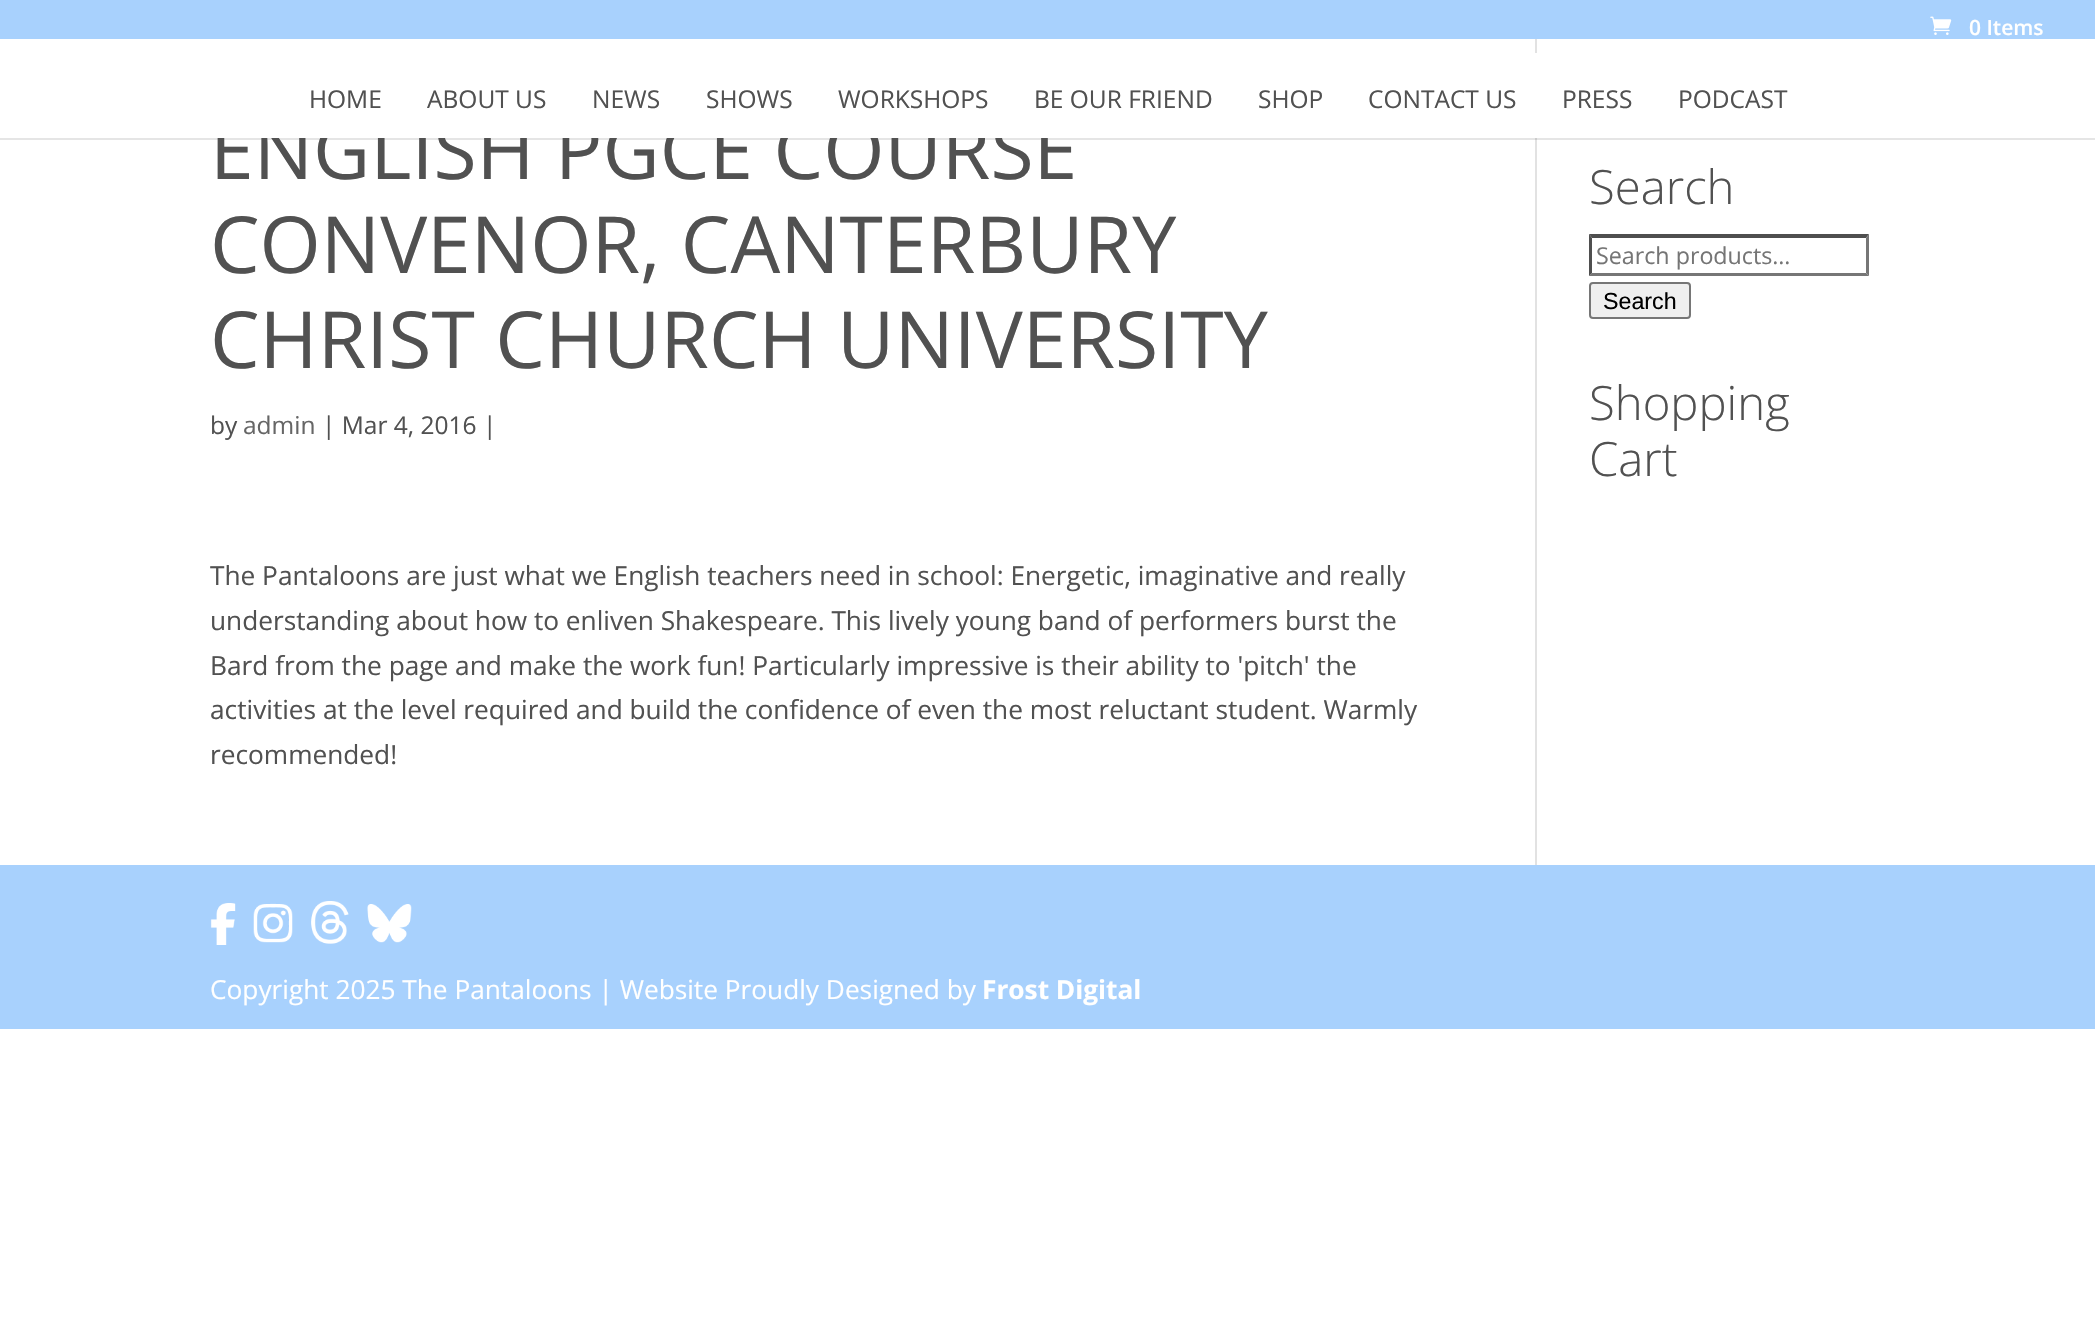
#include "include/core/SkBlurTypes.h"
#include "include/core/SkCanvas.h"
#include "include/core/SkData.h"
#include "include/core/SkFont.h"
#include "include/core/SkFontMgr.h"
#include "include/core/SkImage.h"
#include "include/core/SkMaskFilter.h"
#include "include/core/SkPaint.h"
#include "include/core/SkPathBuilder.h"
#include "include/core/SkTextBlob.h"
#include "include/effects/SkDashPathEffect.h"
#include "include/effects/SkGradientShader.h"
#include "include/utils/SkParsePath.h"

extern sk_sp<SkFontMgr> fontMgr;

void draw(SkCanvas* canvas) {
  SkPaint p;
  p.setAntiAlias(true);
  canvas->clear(SK_ColorWHITE);
  p.setColor(SkColorSetRGB(168, 209, 253));
  canvas->drawRect(SkRect::MakeLTRB(0, 0, 2095, 39), p);
  canvas->drawImageRect(SkImages::DeferredFromEncodedData(SkData::MakeFromFileName("images/1.png")), SkRect::MakeLTRB(1930, 16, 1952, 35), SkSamplingOptions());
  p.setColor(SkColorSetRGB(226, 226, 226));
  canvas->drawRect(SkRect::MakeLTRB(1535, 39, 1537, 865), p);
  p.setColor(SkColorSetARGB(26, 0, 0, 0));
  canvas->drawPath(SkPathBuilder().moveTo(0, 138).lineTo(0, 140).lineTo(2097, 140).lineTo(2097, 54).lineTo(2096, 54).lineTo(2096, 138).close().detach(), p);
  p.setColor(SkColorSetRGB(79, 79, 79));
  canvas->drawPath(SkPathBuilder().moveTo(1589, 234).lineTo(1869, 234).lineTo(1866, 238).lineTo(1592, 238).close().detach(), p);
  p.setColor(SkColorSetRGB(118, 118, 118));
  canvas->drawPath(SkPathBuilder().moveTo(1869, 234).lineTo(1869, 276).lineTo(1866, 273).lineTo(1866, 238).close().detach(), p);
  canvas->drawPath(SkPathBuilder().moveTo(1869, 276).lineTo(1589, 276).lineTo(1592, 273).lineTo(1866, 273).close().detach(), p);
  p.setColor(SkColorSetRGB(79, 79, 79));
  canvas->drawPath(SkPathBuilder().moveTo(1589, 276).lineTo(1589, 234).lineTo(1592, 238).lineTo(1592, 273).close().detach(), p);
  p.setColor(SkColorSetRGB(239, 239, 239));
  canvas->drawRoundRect(SkRect::MakeLTRB(1590, 283, 1690, 318), 3, 3, p);
  p.setStyle(SkPaint::kStroke_Style);
  p.setStrokeWidth(2);
  p.setColor(SkColorSetRGB(118, 118, 118));
  canvas->drawRoundRect(SkRect::MakeLTRB(1590, 283, 1690, 318), 3, 3, p);
  p.setStyle(SkPaint::kFill_Style);
  p.setColor(SkColorSetRGB(168, 209, 253));
  canvas->drawRect(SkRect::MakeLTRB(0, 865, 2095, 1029), p);
  canvas->drawImageRect(SkImages::DeferredFromEncodedData(SkData::MakeFromFileName("images/2.png")), SkRect::MakeLTRB(210, 903, 236, 945), SkSamplingOptions());
  canvas->drawImageRect(SkImages::DeferredFromEncodedData(SkData::MakeFromFileName("images/3.png")), SkRect::MakeLTRB(253, 903, 293, 943), SkSamplingOptions());
  canvas->drawImageRect(SkImages::DeferredFromEncodedData(SkData::MakeFromFileName("images/4.png")), SkRect::MakeLTRB(311, 901, 349, 944), SkSamplingOptions());
  canvas->drawImageRect(SkImages::DeferredFromEncodedData(SkData::MakeFromFileName("images/5.png")), SkRect::MakeLTRB(367, 904, 412, 943), SkSamplingOptions());
  SkFont font1(fontMgr->matchFamilyStyle("Open Sans", SkFontStyle(600, SkFontStyle::kNormal_Width, SkFontStyle::kUpright_Slant)), 21);
  font1.setSubpixel(true);
  p.setColor(SK_ColorWHITE);
  canvas->drawString("0 Items", 1969, 35, font1, p);
  SkFont font2(fontMgr->matchFamilyStyle("Open Sans", SkFontStyle::Normal()), 24.5f);
  font2.setSubpixel(true);
  p.setColor(SkColorSetRGB(81, 81, 81));
  canvas->drawString("PRESS", 1562, 108, font2, p);
  canvas->drawString("PODCAST", 1678, 108, font2, p);
  SkFont font3(fontMgr->matchFamilyStyle("Open Sans", SkFontStyle::Normal()), 78.75f);
  font3.setSubpixel(true);
  canvas->drawString("ENGLISH PGCE COURSE", 210, 179, font3, p);
  p.setColor(SK_ColorWHITE);
  canvas->drawRect(SkRect::MakeLTRB(217, 53, 1537, 138), p);
  p.setColor(SkColorSetRGB(81, 81, 81));
  canvas->drawString("CONTACT US", 1368, 108, font2, p);
  canvas->drawString("SHOP", 1258, 108, font2, p);
  canvas->drawString("BE OUR FRIEND", 1034, 108, font2, p);
  canvas->drawString("WORKSHOPS", 838, 108, font2, p);
  canvas->drawString("SHOWS", 706, 108, font2, p);
  canvas->drawString("NEWS", 592, 108, font2, p);
  canvas->drawString("ABOUT US", 427, 108, font2, p);
  canvas->drawString("HOME", 309, 108, font2, p);
  canvas->drawString("CONVENOR, CANTERBURY", 210, 273, font3, p);
  canvas->drawString("CHRIST CHURCH UNIVERSITY", 210, 368, font3, p);
  canvas->drawString("by", 210, 434, font2, p);
  p.setColor(SkColorSetRGB(102, 102, 102));
  canvas->drawString("admin", 243, 434, font2, p);
  p.setColor(SkColorSetRGB(81, 81, 81));
  canvas->drawString("| Mar 4, 2016 |", 322, 434, font2, p);
  SkFont font4(fontMgr->matchFamilyStyle("Open Sans", SkFontStyle::Normal()), 26.25f);
  font4.setSubpixel(true);
  canvas->drawString("The Pantaloons are just what we English teachers need in school: Energetic, imaginative and really", 210, 585, font4, p);
  canvas->drawString("understanding about how to enliven Shakespeare. This lively young band of performers burst the", 210, 630, font4, p);
  canvas->drawString("Bard from the page and make the work fun! Particularly impressive is their ability to 'pitch' the", 210, 675, font4, p);
  canvas->drawString("activities at the level required and build the confidence of even the most reluctant student. Warmly", 210, 719, font4, p);
  canvas->drawString("recommended!", 210, 764, font4, p);
  SkFont font5(fontMgr->matchFamilyStyle("Open Sans", SkFontStyle(300, SkFontStyle::kNormal_Width, SkFontStyle::kUpright_Slant)), 47.25f);
  font5.setSubpixel(true);
  canvas->drawString("Search", 1589, 204, font5, p);
  SkFont font6(fontMgr->matchFamilyStyle("Open Sans", SkFontStyle::Normal()), 23.25f);
  font6.setSubpixel(true);
  p.setColor(SkColorSetRGB(117, 117, 117));
  canvas->drawString("Search products…", 1596, 264, font6, p);
  SkFont font7(fontMgr->matchFamilyStyle("Liberation Sans", SkFontStyle::Normal()), 23.25f);
  font7.setSubpixel(true);
  p.setColor(SK_ColorBLACK);
  canvas->drawString("Search", 1603, 309, font7, p);
  p.setColor(SkColorSetRGB(81, 81, 81));
  canvas->drawString("Shopping", 1589, 420, font5, p);
  canvas->drawString("Cart", 1589, 476, font5, p);
  p.setColor(SK_ColorWHITE);
  canvas->drawString("Copyright 2025 The Pantaloons | Website Proudly Designed by", 210, 999, font4, p);
  SkFont font8(fontMgr->matchFamilyStyle("Open Sans", SkFontStyle::Bold()), 26.25f);
  font8.setSubpixel(true);
  canvas->drawString("Frost Digital", 982, 999, font8, p);
}
